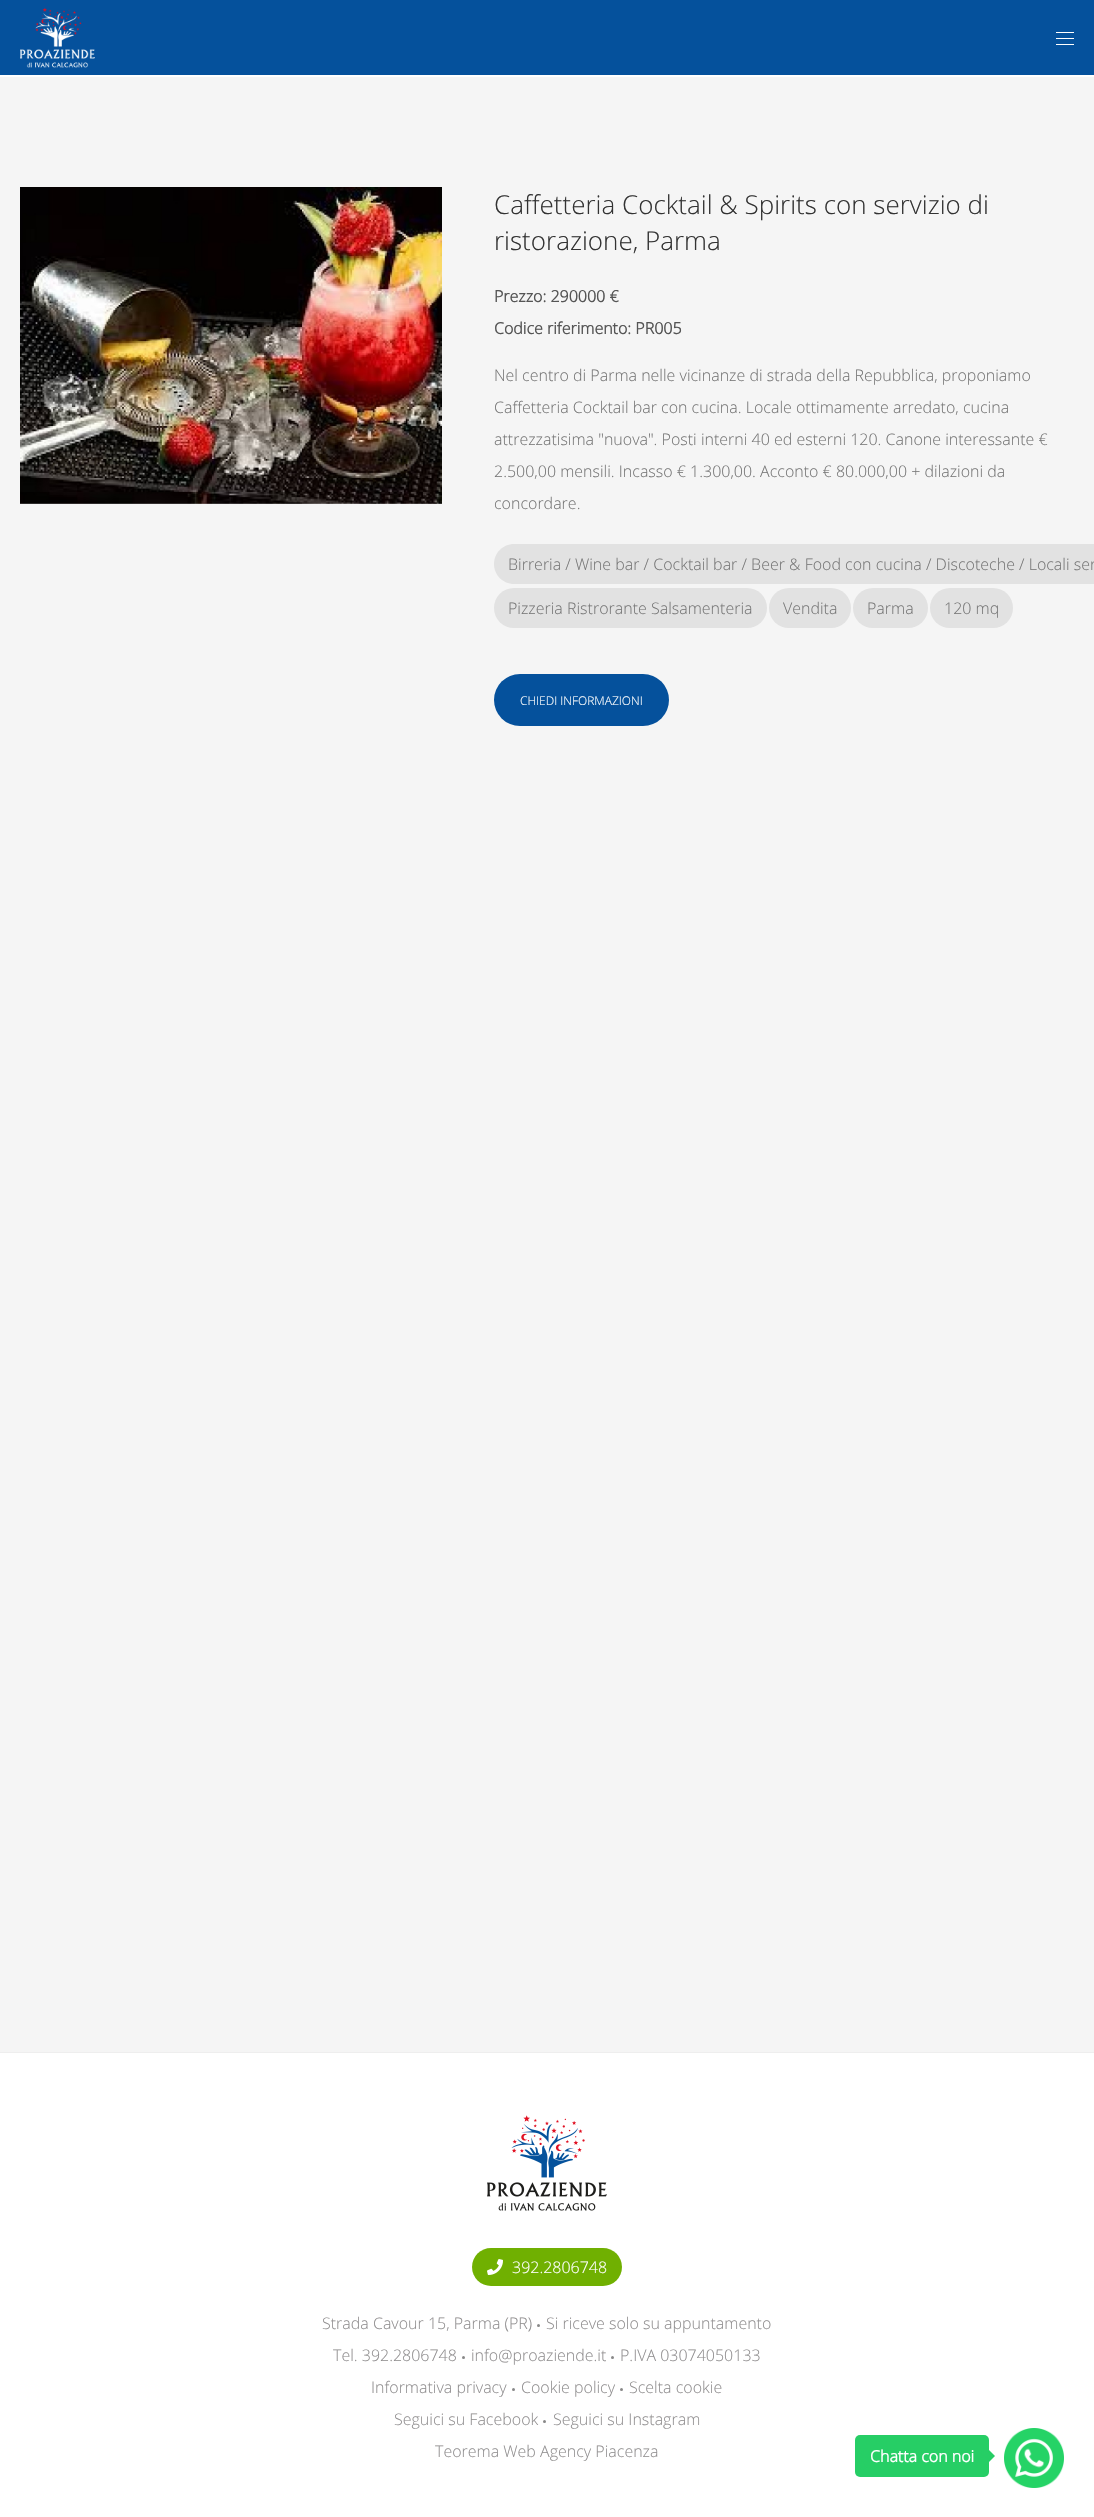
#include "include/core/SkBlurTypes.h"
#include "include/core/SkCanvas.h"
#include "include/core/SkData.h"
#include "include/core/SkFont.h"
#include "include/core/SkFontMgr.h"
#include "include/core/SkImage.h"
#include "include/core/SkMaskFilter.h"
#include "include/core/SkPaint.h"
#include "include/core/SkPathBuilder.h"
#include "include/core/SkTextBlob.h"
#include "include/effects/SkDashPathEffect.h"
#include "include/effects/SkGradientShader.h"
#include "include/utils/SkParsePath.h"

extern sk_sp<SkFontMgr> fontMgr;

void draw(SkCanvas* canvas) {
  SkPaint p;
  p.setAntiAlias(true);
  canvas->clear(SK_ColorWHITE);
  p.setColor(SkColorSetRGB(5, 81, 156));
  canvas->drawRect(SkRect::MakeLTRB(0, 0, 1094, 75), p);
  canvas->drawImageRect(SkImages::DeferredFromEncodedData(SkData::MakeFromFileName("images/1.png")), SkRect::MakeLTRB(20, 7, 95, 68), SkSamplingOptions());
  p.setColor(SK_ColorWHITE);
  canvas->drawRect(SkRect::MakeLTRB(1056, 32, 1074, 33), p);
  canvas->drawRect(SkRect::MakeLTRB(1056, 38, 1074, 39), p);
  canvas->drawRect(SkRect::MakeLTRB(1056, 44, 1074, 45), p);
  p.setColor(SkColorSetRGB(245, 245, 245));
  canvas->drawRect(SkRect::MakeLTRB(0, 77, 1094, 2052), p);
  canvas->drawImageRect(SkImages::DeferredFromEncodedData(SkData::MakeFromFileName("images/2.png")), SkRect::MakeLTRB(20, 187, 442, 504), SkSamplingOptions());
  p.setColor(SkColorSetRGB(226, 226, 226));
  canvas->drawPath(SkPathBuilder().moveTo(514, 544).lineTo(1094, 544).lineTo(1094, 584).lineTo(514, 584).cubicTo(503, 584, 494, 575, 494, 564).cubicTo(494, 553, 503, 544, 514, 544).close().detach(), p);
  canvas->drawRoundRect(SkRect::MakeLTRB(494, 588, 767, 628), 20, 20, p);
  canvas->drawRoundRect(SkRect::MakeLTRB(769, 588, 851, 628), 20, 20, p);
  canvas->drawRoundRect(SkRect::MakeLTRB(853, 588, 928, 628), 20, 20, p);
  canvas->drawRoundRect(SkRect::MakeLTRB(930, 588, 1013, 628), 20, 20, p);
  p.setColor(SkColorSetRGB(5, 81, 156));
  canvas->drawRoundRect(SkRect::MakeLTRB(494, 674, 669, 726), 26, 26, p);
  p.setColor(SkColorSetRGB(238, 238, 238));
  canvas->drawRect(SkRect::MakeLTRB(0, 2052, 1094, 2053), p);
  canvas->drawImageRect(SkImages::DeferredFromEncodedData(SkData::MakeFromFileName("images/3.png")), SkRect::MakeLTRB(487, 2115, 607, 2211), SkSamplingOptions());
  p.setColor(SkColorSetRGB(112, 176, 1));
  canvas->drawRoundRect(SkRect::MakeLTRB(472, 2248, 622, 2286), 19, 19, p);
  canvas->drawImageRect(SkImages::DeferredFromEncodedData(SkData::MakeFromFileName("images/4.png")), SkRect::MakeLTRB(487, 2259, 503, 2275), SkSamplingOptions());
  p.setColor(SkColorSetRGB(136, 136, 136));
  canvas->drawCircle(538.5f, 2325.5f, 1.5f, p);
  canvas->drawCircle(463.5f, 2357.5f, 1.5f, p);
  canvas->drawCircle(612.5f, 2357.5f, 1.5f, p);
  canvas->drawCircle(513.5f, 2389.5f, 1.5f, p);
  canvas->drawCircle(621.5f, 2389.5f, 1.5f, p);
  canvas->drawCircle(544.5f, 2421.5f, 1.5f, p);
  p.setColor(SkColorSetRGB(38, 206, 101));
  canvas->drawRoundRect(SkRect::MakeLTRB(855, 2435, 989, 2477), 5, 5, p);
  canvas->drawPath(SkPathBuilder().moveTo(989, 2462).lineTo(989, 2450).lineTo(995, 2456).close().detach(), p);
  canvas->drawImageRect(SkImages::DeferredFromEncodedData(SkData::MakeFromFileName("images/5.png")), SkRect::MakeLTRB(1004, 2428, 1064, 2488), SkSamplingOptions());
  SkFont font1(fontMgr->matchFamilyStyle("Open Sans", SkFontStyle(300, SkFontStyle::kNormal_Width, SkFontStyle::kUpright_Slant)), 26);
  font1.setSubpixel(true);
  p.setColor(SkColorSetRGB(51, 51, 51));
  canvas->drawString("Caffetteria Cocktail & Spirits con servizio di", 494, 214, font1, p);
  canvas->drawString("ristorazione, Parma", 494, 250, font1, p);
  SkFont font2(fontMgr->matchFamilyStyle("Open Sans", SkFontStyle::Bold()), 16);
  font2.setSubpixel(true);
  p.setColor(SkColorSetRGB(85, 85, 85));
  canvas->drawString("Prezzo: 290000 €", 494, 302, font2, p);
  canvas->drawString("Codice riferimento: PR005", 494, 334, font2, p);
  SkFont font3(fontMgr->matchFamilyStyle("Open Sans", SkFontStyle(300, SkFontStyle::kNormal_Width, SkFontStyle::kUpright_Slant)), 16);
  font3.setSubpixel(true);
  p.setColor(SkColorSetRGB(119, 119, 119));
  canvas->drawString("Nel centro di Parma nelle vicinanze di strada della Repubblica, proponiamo", 494, 381, font3, p);
  canvas->drawString("Caffetteria Cocktail bar con cucina. Locale ottimamente arredato, cucina", 494, 413, font3, p);
  canvas->drawString("attrezzatisima \"nuova\". Posti interni 40 ed esterni 120. Canone interessante €", 494, 445, font3, p);
  canvas->drawString("2.500,00 mensili. Incasso € 1.300,00. Acconto € 80.000,00 + dilazioni da", 494, 477, font3, p);
  canvas->drawString("concordare.", 494, 509, font3, p);
  canvas->drawString("Birreria / Wine bar / Cocktail bar / Beer & Food con cucina / Discoteche / Locali ser", 508, 570, font3, p);
  canvas->drawString("Pizzeria Ristrorante Salsamenteria", 508, 614, font3, p);
  canvas->drawString("Vendita", 783, 614, font3, p);
  canvas->drawString("Parma", 867, 614, font3, p);
  canvas->drawString("120 mq", 944, 614, font3, p);
  SkFont font4(fontMgr->matchFamilyStyle("Open Sans", SkFontStyle(300, SkFontStyle::kNormal_Width, SkFontStyle::kUpright_Slant)), 12);
  font4.setSubpixel(true);
  p.setColor(SK_ColorWHITE);
  canvas->drawString("CHIEDI INFORMAZIONI", 520, 705, font4, p);
  canvas->drawString("392.2806748", 512, 2273, font3, p);
  p.setColor(SkColorSetRGB(145, 143, 144));
  canvas->drawString("Strada Cavour 15, Parma (PR)", 322, 2329, font3, p);
  canvas->drawString("Si riceve solo su appuntamento", 546, 2329, font3, p);
  canvas->drawString("Tel. 392.2806748", 333, 2361, font3, p);
  canvas->drawString("info@proaziende.it", 471, 2361, font3, p);
  canvas->drawString("P.IVA 03074050133", 620, 2361, font3, p);
  canvas->drawString("Informativa privacy", 371, 2393, font3, p);
  canvas->drawString("Cookie policy", 521, 2393, font3, p);
  canvas->drawString("Scelta cookie", 629, 2393, font3, p);
  canvas->drawString("Seguici su Facebook", 394, 2425, font3, p);
  canvas->drawString("Seguici su Instagram", 553, 2425, font3, p);
  canvas->drawString("Teorema Web Agency Piacenza", 435, 2457, font3, p);
  p.setColor(SK_ColorWHITE);
  canvas->drawString("Chatta con noi", 870, 2462, font2, p);
}
